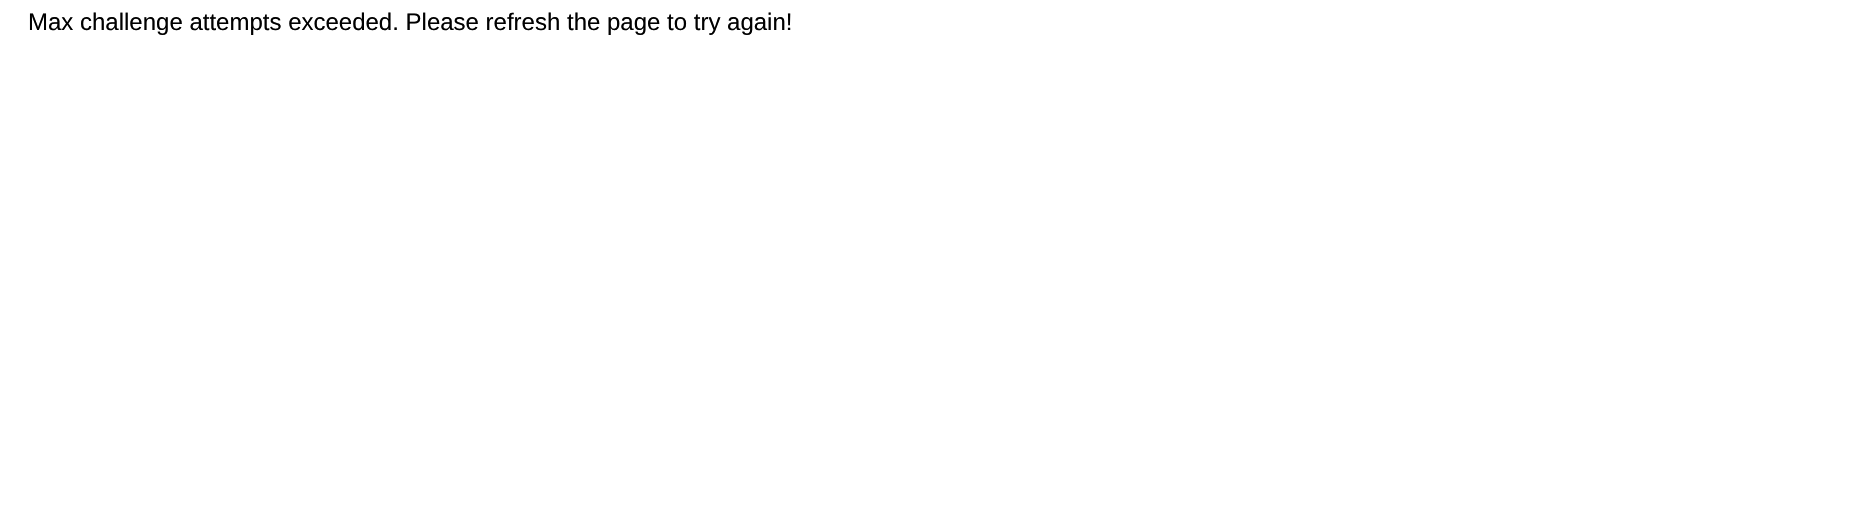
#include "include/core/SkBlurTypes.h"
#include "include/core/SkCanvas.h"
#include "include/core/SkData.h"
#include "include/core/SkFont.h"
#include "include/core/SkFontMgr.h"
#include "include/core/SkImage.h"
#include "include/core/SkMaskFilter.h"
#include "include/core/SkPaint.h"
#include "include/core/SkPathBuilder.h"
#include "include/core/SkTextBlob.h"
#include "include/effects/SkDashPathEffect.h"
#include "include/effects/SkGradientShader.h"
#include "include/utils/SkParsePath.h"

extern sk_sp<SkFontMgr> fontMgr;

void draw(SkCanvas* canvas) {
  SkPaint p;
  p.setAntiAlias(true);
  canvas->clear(SK_ColorWHITE);
  SkFont font1(fontMgr->matchFamilyStyle("Liberation Sans", SkFontStyle::Normal()), 24);
  font1.setSubpixel(true);
  p.setColor(SK_ColorBLACK);
  canvas->drawString("Max challenge attempts exceeded. Please refresh the page to try again!", 28, 30, font1, p);
}
